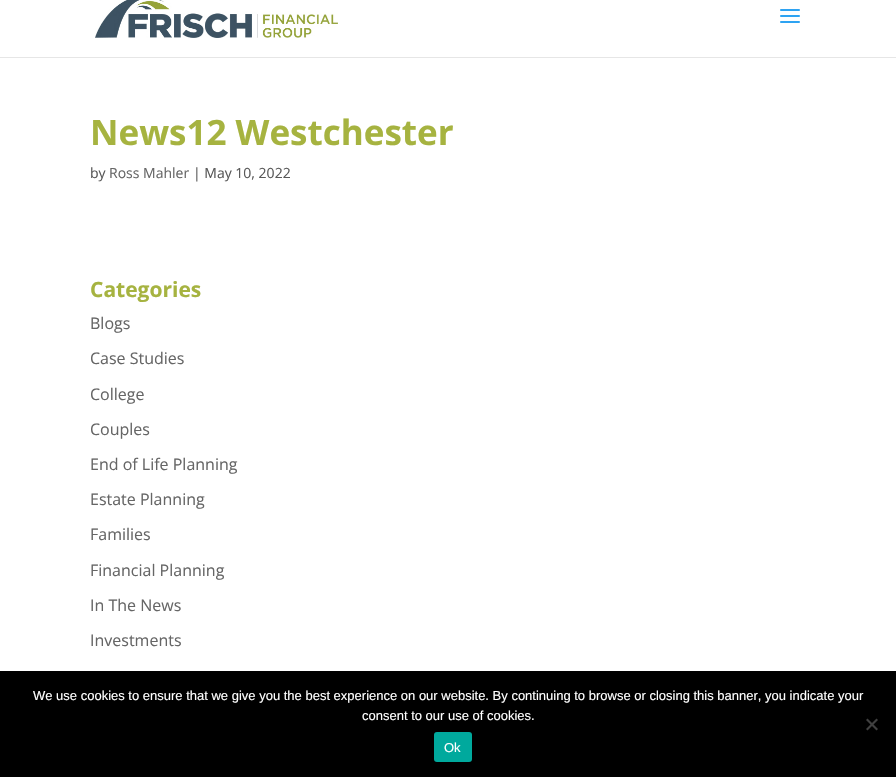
#include "include/core/SkBlurTypes.h"
#include "include/core/SkCanvas.h"
#include "include/core/SkData.h"
#include "include/core/SkFont.h"
#include "include/core/SkFontMgr.h"
#include "include/core/SkImage.h"
#include "include/core/SkMaskFilter.h"
#include "include/core/SkPaint.h"
#include "include/core/SkPathBuilder.h"
#include "include/core/SkTextBlob.h"
#include "include/effects/SkDashPathEffect.h"
#include "include/effects/SkGradientShader.h"
#include "include/utils/SkParsePath.h"

extern sk_sp<SkFontMgr> fontMgr;

void draw(SkCanvas* canvas) {
  SkPaint p;
  p.setAntiAlias(true);
  canvas->clear(SK_ColorWHITE);
  p.setColor(SkColorSetRGB(230, 230, 230));
  canvas->drawRect(SkRect::MakeLTRB(0, 57, 896, 58), p);
  canvas->drawImageRect(SkImages::DeferredFromEncodedData(SkData::MakeFromFileName("images/1.png")), SkRect::MakeLTRB(95, 0, 338, 38), SkSamplingOptions());
  canvas->drawImageRect(SkImages::DeferredFromEncodedData(SkData::MakeFromFileName("images/2.png")), SkRect::MakeLTRB(780, 9, 800, 23), SkSamplingOptions());
  p.setColor(SK_ColorBLACK);
  canvas->drawRect(SkRect::MakeLTRB(0, 671, 896, 777), p);
  p.setColor(SkColorSetRGB(64, 64, 64));
  canvas->drawPath(SkPathBuilder().moveTo(876.5f, 718.5f).lineTo(878, 720).lineTo(867.5f, 730.5f).lineTo(866, 729).close().detach(), p);
  canvas->drawPath(SkPathBuilder().moveTo(866, 720).lineTo(867.5f, 718.5f).lineTo(878, 729).lineTo(876.5f, 730.5f).close().detach(), p);
  p.setColor(SkColorSetRGB(0, 169, 157));
  canvas->drawRoundRect(SkRect::MakeLTRB(434, 732, 472, 762), 3, 3, p);
  SkFont font1(fontMgr->matchFamilyStyle("Open Sans", SkFontStyle::Bold()), 35);
  font1.setSubpixel(true);
  p.setColor(SkColorSetRGB(166, 179, 64));
  canvas->drawString("News12 Westchester", 90, 145, font1, p);
  SkFont font2(fontMgr->matchFamilyStyle("Open Sans", SkFontStyle::Normal()), 14);
  font2.setSubpixel(true);
  p.setColor(SkColorSetRGB(88, 88, 88));
  canvas->drawString("by", 90, 178, font2, p);
  p.setColor(SkColorSetRGB(102, 102, 102));
  canvas->drawString("Ross Mahler", 109, 178, font2, p);
  p.setColor(SkColorSetRGB(88, 88, 88));
  canvas->drawString("| May 10, 2022", 193, 178, font2, p);
  SkFont font3(fontMgr->matchFamilyStyle("Open Sans", SkFontStyle::Bold()), 21);
  font3.setSubpixel(true);
  p.setColor(SkColorSetRGB(166, 179, 64));
  canvas->drawString("Categories", 90, 297, font3, p);
  SkFont font4(fontMgr->matchFamilyStyle("Open Sans", SkFontStyle::Normal()), 16);
  font4.setSubpixel(true);
  p.setColor(SkColorSetRGB(102, 102, 102));
  canvas->drawString("Blogs", 90, 329, font4, p);
  canvas->drawString("Case Studies", 90, 364, font4, p);
  canvas->drawString("College", 90, 400, font4, p);
  canvas->drawString("Couples", 90, 435, font4, p);
  canvas->drawString("End of Life Planning", 90, 470, font4, p);
  canvas->drawString("Estate Planning", 90, 505, font4, p);
  canvas->drawString("Families", 90, 540, font4, p);
  canvas->drawString("Financial Planning", 90, 576, font4, p);
  canvas->drawString("In The News", 90, 611, font4, p);
  canvas->drawString("Investments", 90, 646, font4, p);
  SkFont font5(fontMgr->matchFamilyStyle("Liberation Sans", SkFontStyle::Normal()), 13);
  font5.setSubpixel(true);
  p.setColor(SK_ColorWHITE);
  canvas->drawString("We use cookies to ensure that we give you the best experience on our website. By continuing to browse or closing this banner, you indicate your", 33, 700, font5, p);
  canvas->drawString("consent to our use of cookies.", 362, 720, font5, p);
  canvas->drawString("Ok", 444, 752, font5, p);
}
